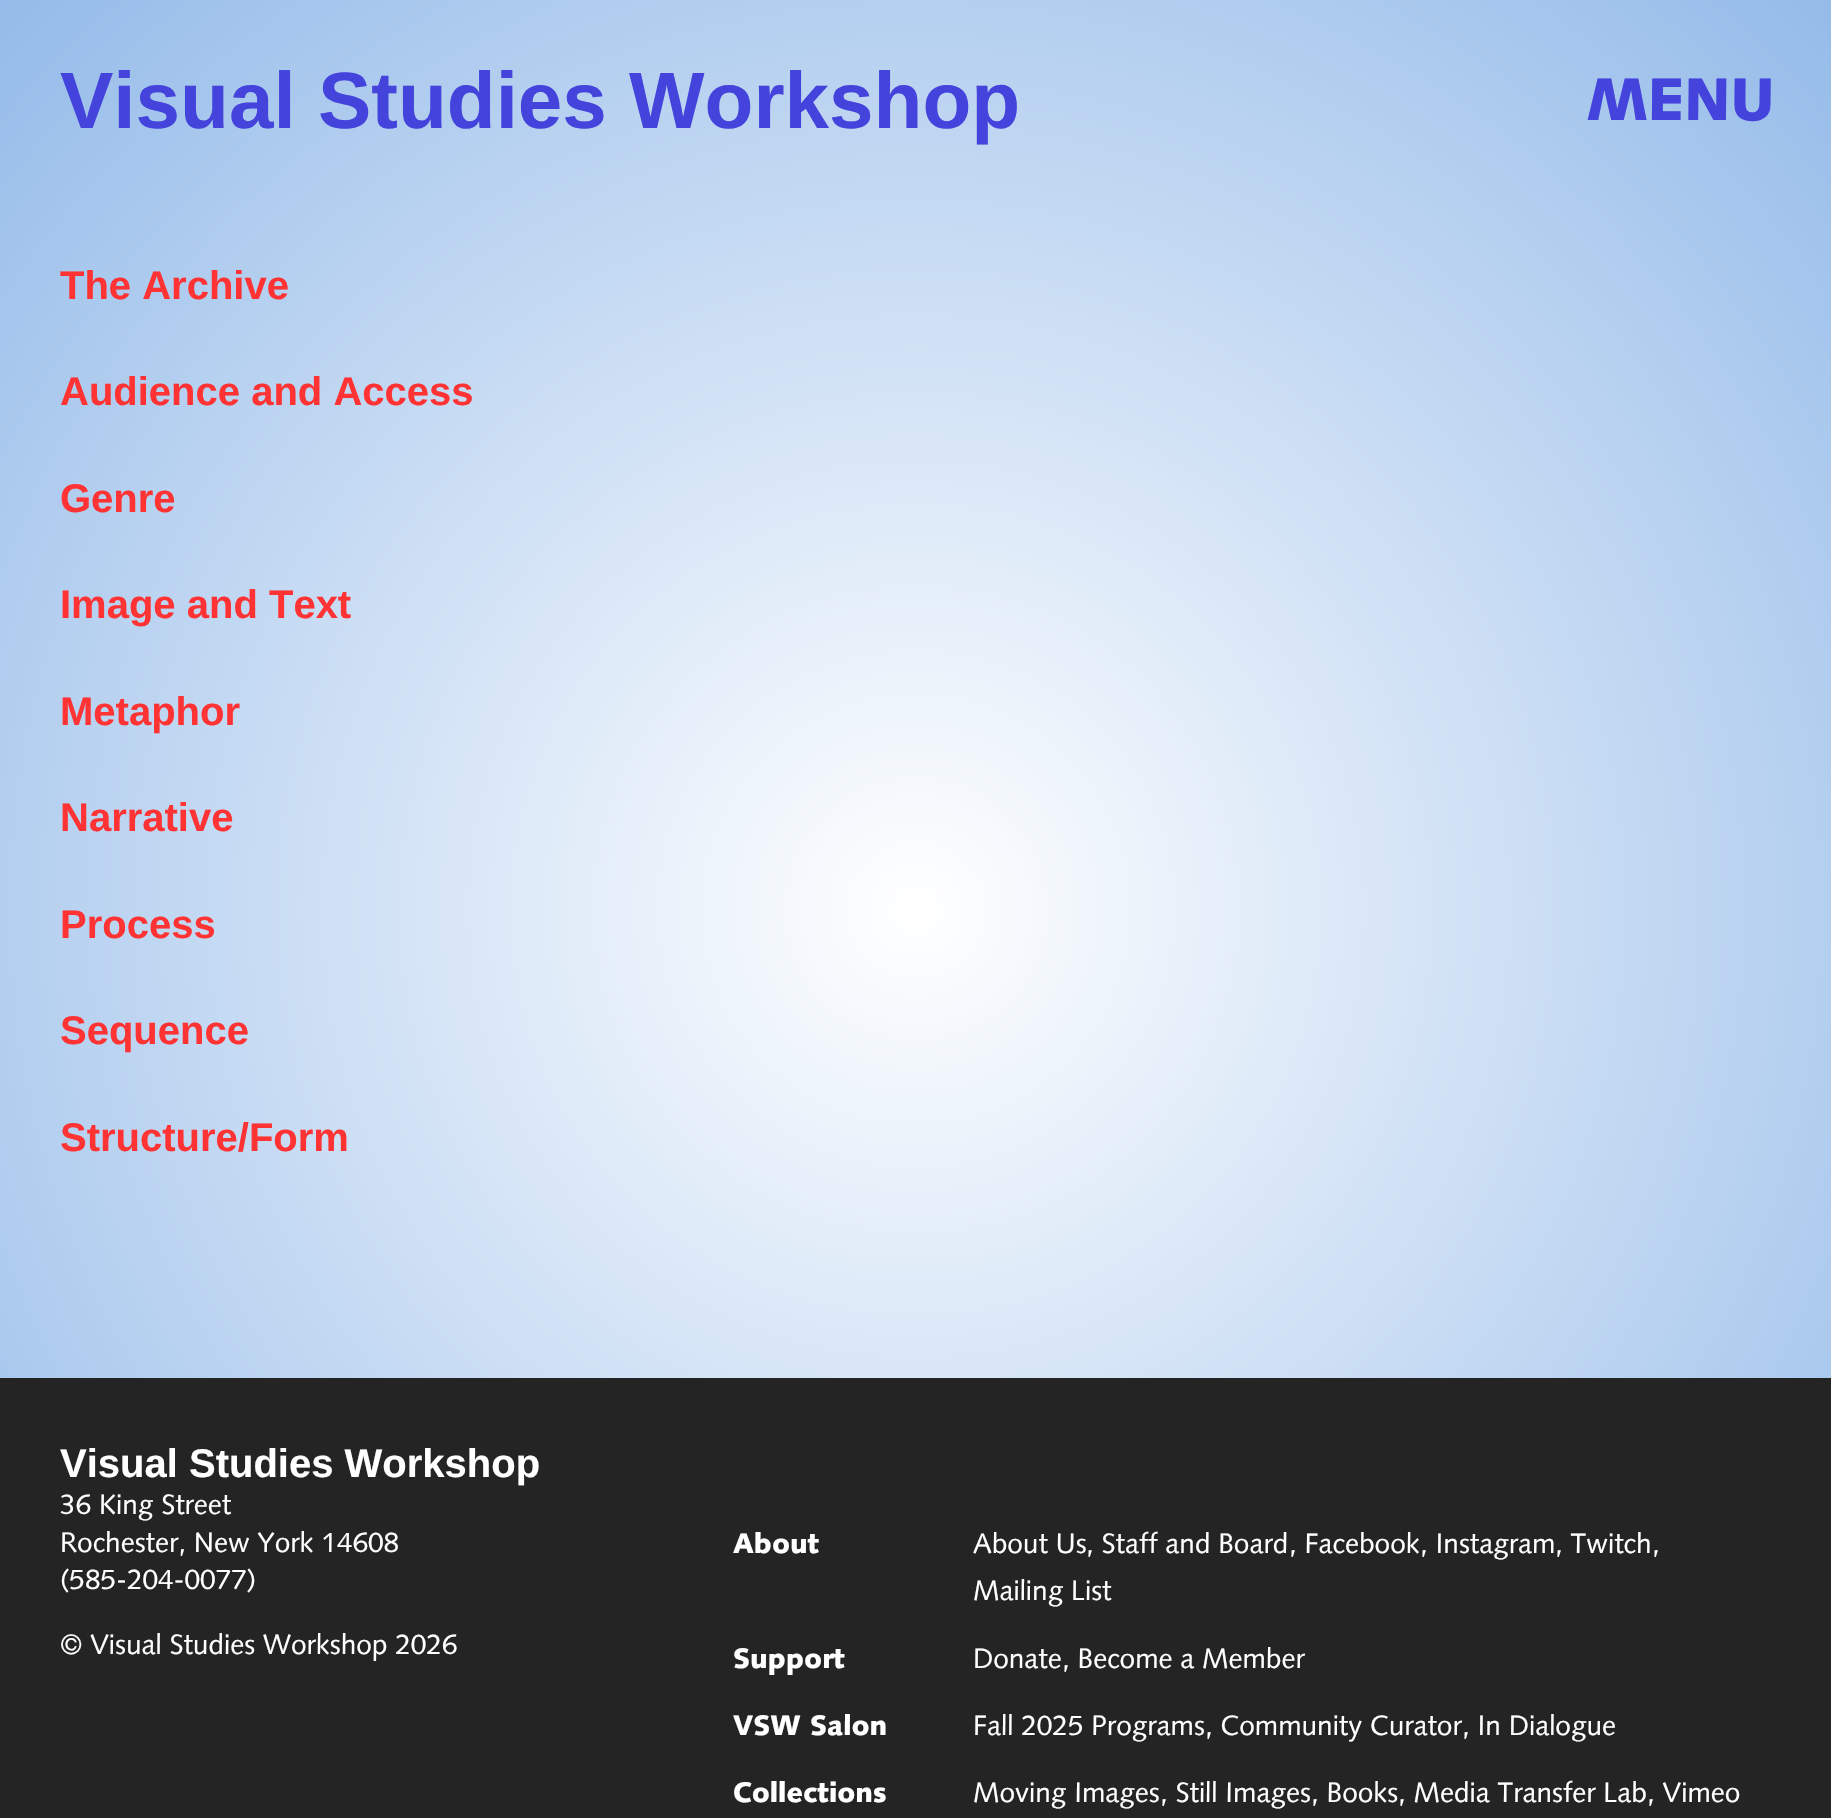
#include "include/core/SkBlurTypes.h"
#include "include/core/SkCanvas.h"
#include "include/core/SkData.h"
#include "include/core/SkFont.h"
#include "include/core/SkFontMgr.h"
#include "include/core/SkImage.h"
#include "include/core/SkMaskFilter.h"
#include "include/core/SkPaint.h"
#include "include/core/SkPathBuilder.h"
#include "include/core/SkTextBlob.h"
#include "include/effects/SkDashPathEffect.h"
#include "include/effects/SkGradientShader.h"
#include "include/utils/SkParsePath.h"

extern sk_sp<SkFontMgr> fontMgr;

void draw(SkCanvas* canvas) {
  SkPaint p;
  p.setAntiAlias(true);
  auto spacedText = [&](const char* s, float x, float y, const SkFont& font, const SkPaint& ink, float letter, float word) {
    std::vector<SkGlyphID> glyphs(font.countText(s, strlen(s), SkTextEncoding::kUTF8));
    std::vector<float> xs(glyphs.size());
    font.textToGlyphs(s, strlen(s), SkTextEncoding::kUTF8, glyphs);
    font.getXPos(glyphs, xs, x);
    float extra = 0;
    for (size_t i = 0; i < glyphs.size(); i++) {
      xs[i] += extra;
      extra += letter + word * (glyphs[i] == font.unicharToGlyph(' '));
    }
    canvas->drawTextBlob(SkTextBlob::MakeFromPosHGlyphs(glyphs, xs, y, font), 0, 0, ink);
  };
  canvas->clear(SK_ColorWHITE);
  {
    const SkColor colors[] = {SK_ColorWHITE, SkColorSetRGB(148, 187, 233)};
    const float stops[] = {0, 1};
    p.setShader(SkGradientShader::MakeRadial({916, 909}, 1290, colors, stops, 2, SkTileMode::kClamp));
    p.setAlpha(255);
  }
  canvas->drawRect(SkRect::MakeLTRB(0, 0, 1831, 1378), p);
  p.setShader(nullptr);
  p.setColor(SkColorSetRGB(36, 36, 36));
  canvas->drawRect(SkRect::MakeLTRB(0, 1378, 1831, 1818), p);
  SkFont font1(fontMgr->matchFamilyStyle("Liberation Sans", SkFontStyle::Bold()), 80);
  font1.setSubpixel(true);
  p.setColor(SkColorSetRGB(68, 68, 221));
  canvas->drawString("Visual Studies Workshop", 60, 128, font1, p);
  SkFont font2(fontMgr->matchFamilyStyle("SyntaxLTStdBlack", SkFontStyle::Normal()), 60);
  font2.setSubpixel(true);
  spacedText("MENU", 1586, 120, font2, p, -1, 0);
  SkFont font3(fontMgr->matchFamilyStyle("Liberation Sans", SkFontStyle::Bold()), 40);
  font3.setSubpixel(true);
  p.setColor(SkColorSetRGB(255, 51, 51));
  canvas->drawString("The Archive", 60, 299, font3, p);
  canvas->drawString("Audience and Access", 60, 405, font3, p);
  canvas->drawString("Genre", 60, 512, font3, p);
  canvas->drawString("Image and Text", 60, 618, font3, p);
  canvas->drawString("Metaphor", 60, 725, font3, p);
  canvas->drawString("Narrative", 60, 831, font3, p);
  canvas->drawString("Process", 60, 938, font3, p);
  canvas->drawString("Sequence", 60, 1044, font3, p);
  canvas->drawString("Structure/Form", 60, 1151, font3, p);
  p.setColor(SK_ColorWHITE);
  canvas->drawString("Visual Studies Workshop", 60, 1477, font3, p);
  SkFont font4(fontMgr->matchFamilyStyle("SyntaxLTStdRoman", SkFontStyle::Normal()), 28);
  font4.setSubpixel(true);
  canvas->drawString("36 King Street", 60, 1514, font4, p);
  canvas->drawString("Rochester, New York 14608", 60, 1552, font4, p);
  canvas->drawString("(585-204-0077)", 60, 1589, font4, p);
  canvas->drawString("© Visual Studies Workshop 2026", 60, 1654, font4, p);
  SkFont font5(fontMgr->matchFamilyStyle("SyntaxLTStdBlack", SkFontStyle::Normal()), 28);
  font5.setSubpixel(true);
  canvas->drawString("About", 733, 1553, font5, p);
  canvas->drawString("About Us", 973, 1553, font4, p);
  canvas->drawString(", Staff and Board", 1086, 1553, font4, p);
  canvas->drawString(", Facebook", 1289, 1553, font4, p);
  canvas->drawString(", Instagram", 1420, 1553, font4, p);
  canvas->drawString(", Twitch", 1555, 1553, font4, p);
  canvas->drawString(",", 1652, 1553, font4, p);
  canvas->drawString("Mailing List", 973, 1600, font4, p);
  canvas->drawString("Support", 733, 1668, font5, p);
  canvas->drawString("Donate", 973, 1668, font4, p);
  canvas->drawString(", Become a Member", 1062, 1668, font4, p);
  canvas->drawString("VSW Salon", 733, 1735, font5, p);
  canvas->drawString("Fall 2025 Programs", 973, 1735, font4, p);
  canvas->drawString(", Community Curator", 1205, 1735, font4, p);
  canvas->drawString(", In Dialogue", 1462, 1735, font4, p);
  canvas->drawString("Collections", 733, 1802, font5, p);
  canvas->drawString("Moving Images", 973, 1802, font4, p);
  canvas->drawString(", Still Images", 1160, 1802, font4, p);
  canvas->drawString(", Books", 1311, 1802, font4, p);
  canvas->drawString(", Media Transfer Lab", 1398, 1802, font4, p);
  canvas->drawString(", Vimeo", 1647, 1802, font4, p);
}
